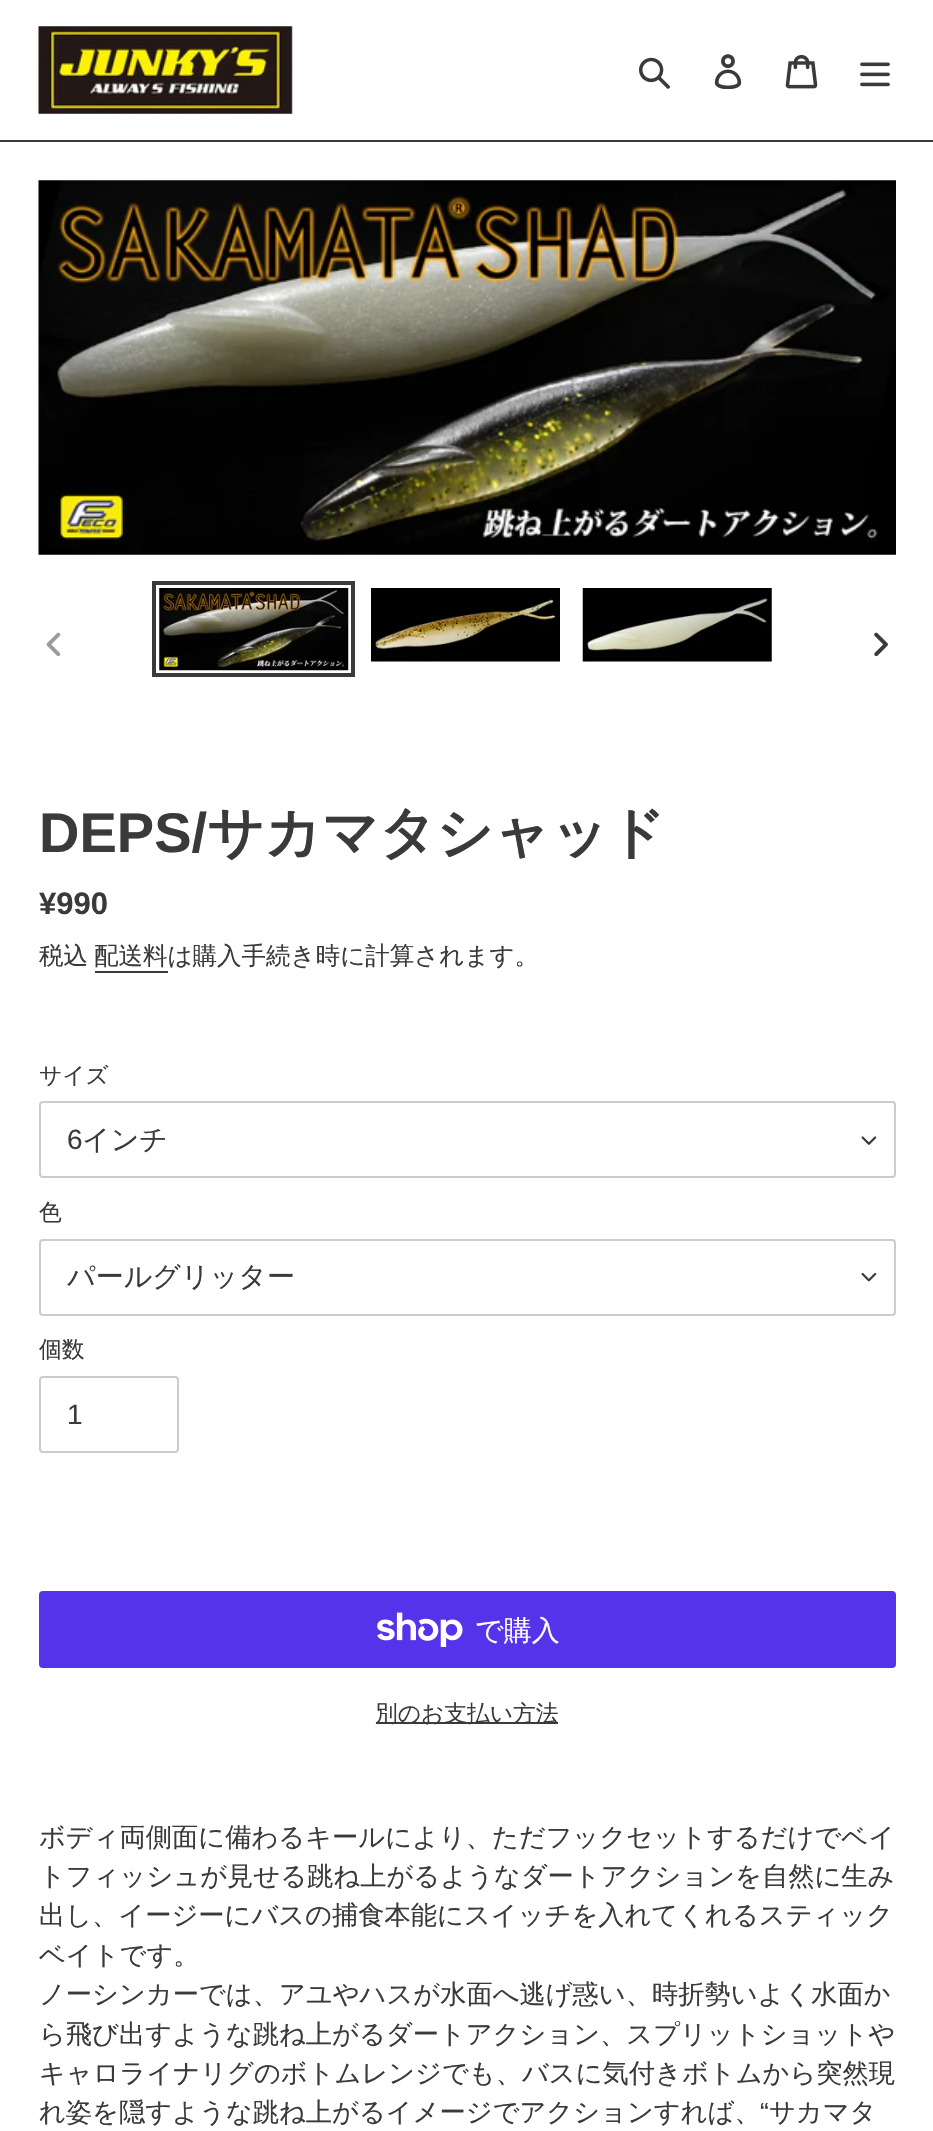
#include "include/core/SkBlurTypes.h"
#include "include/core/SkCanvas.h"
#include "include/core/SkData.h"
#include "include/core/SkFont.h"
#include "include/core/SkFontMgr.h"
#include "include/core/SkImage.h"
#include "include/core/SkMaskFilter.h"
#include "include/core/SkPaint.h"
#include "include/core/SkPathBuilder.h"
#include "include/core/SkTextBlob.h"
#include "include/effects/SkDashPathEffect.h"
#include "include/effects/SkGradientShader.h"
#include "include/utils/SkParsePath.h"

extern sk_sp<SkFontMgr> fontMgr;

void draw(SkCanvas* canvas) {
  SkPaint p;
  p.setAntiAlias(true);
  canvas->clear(SK_ColorWHITE);
  p.setColor(SkColorSetRGB(58, 58, 58));
  canvas->drawRect(SkRect::MakeLTRB(0, 140, 933, 142), p);
  canvas->drawImageRect(SkImages::DeferredFromEncodedData(SkData::MakeFromFileName("images/1.png")), SkRect::MakeLTRB(38, 26, 293, 114), SkSamplingOptions());
  canvas->drawImageRect(SkImages::DeferredFromEncodedData(SkData::MakeFromFileName("images/2.png")), SkRect::MakeLTRB(639, 57, 670, 89), SkSamplingOptions());
  canvas->drawImageRect(SkImages::DeferredFromEncodedData(SkData::MakeFromFileName("images/3.png")), SkRect::MakeLTRB(714, 54, 742, 89), SkSamplingOptions());
  canvas->drawImageRect(SkImages::DeferredFromEncodedData(SkData::MakeFromFileName("images/4.png")), SkRect::MakeLTRB(785, 54, 818, 89), SkSamplingOptions());
  canvas->drawImageRect(SkImages::DeferredFromEncodedData(SkData::MakeFromFileName("images/5.png")), SkRect::MakeLTRB(860, 62, 890, 87), SkSamplingOptions());
  canvas->drawImageRect(SkImages::DeferredFromEncodedData(SkData::MakeFromFileName("images/6.png")), SkRect::MakeLTRB(38, 180, 896, 555), SkSamplingOptions());
  canvas->drawImageRect(SkImages::DeferredFromEncodedData(SkData::MakeFromFileName("images/7.png")), SkRect::MakeLTRB(46, 632, 61, 656), SkSamplingOptions());
  p.setStyle(SkPaint::kStroke_Style);
  p.setStrokeWidth(4);
  canvas->drawRect(SkRect::MakeLTRB(154, 583, 353, 675), p);
  canvas->drawImageRect(SkImages::DeferredFromEncodedData(SkData::MakeFromFileName("images/8.png")), SkRect::MakeLTRB(159, 588, 349, 671), SkSamplingOptions());
  canvas->drawImageRect(SkImages::DeferredFromEncodedData(SkData::MakeFromFileName("images/9.png")), SkRect::MakeLTRB(371, 588, 560, 662), SkSamplingOptions());
  canvas->drawImageRect(SkImages::DeferredFromEncodedData(SkData::MakeFromFileName("images/10.png")), SkRect::MakeLTRB(582, 588, 772, 662), SkSamplingOptions());
  canvas->drawImageRect(SkImages::DeferredFromEncodedData(SkData::MakeFromFileName("images/11.png")), SkRect::MakeLTRB(874, 632, 888, 656), SkSamplingOptions());
  p.setStyle(SkPaint::kFill_Style);
  canvas->drawRect(SkRect::MakeLTRB(95, 971, 168, 973), p);
  canvas->drawImageRect(SkImages::DeferredFromEncodedData(SkData::MakeFromFileName("images/12.png")), SkRect::MakeLTRB(861, 1136, 877, 1145), SkSamplingOptions());
  p.setStyle(SkPaint::kStroke_Style);
  p.setStrokeWidth(2);
  p.setColor(SkColorSetRGB(204, 204, 204));
  canvas->drawRoundRect(SkRect::MakeLTRB(40, 1102, 895, 1177), 3, 3, p);
  canvas->drawImageRect(SkImages::DeferredFromEncodedData(SkData::MakeFromFileName("images/13.png")), SkRect::MakeLTRB(861, 1272, 877, 1282), SkSamplingOptions());
  canvas->drawRoundRect(SkRect::MakeLTRB(40, 1240, 895, 1315), 3, 3, p);
  canvas->drawRoundRect(SkRect::MakeLTRB(40, 1377, 178, 1452), 3, 3, p);
  p.setStyle(SkPaint::kFill_Style);
  p.setColor(SkColorSetRGB(84, 51, 235));
  canvas->drawRoundRect(SkRect::MakeLTRB(39, 1591, 896, 1668), 4, 4, p);
  canvas->drawImageRect(SkImages::DeferredFromEncodedData(SkData::MakeFromFileName("images/14.png")), SkRect::MakeLTRB(377, 1612, 463, 1647), SkSamplingOptions());
  p.setColor(SkColorSetRGB(58, 58, 58));
  canvas->drawRect(SkRect::MakeLTRB(376, 1722, 558, 1724), p);
  SkFont font1(fontMgr->matchFamilyStyle("Liberation Sans", SkFontStyle::Bold()), 56);
  font1.setSubpixel(true);
  canvas->drawString("DEPS/", 39, 852, font1, p);
  SkFont font2(fontMgr->matchFamilyStyle("WenQuanYi Zen Hei", SkFontStyle::Bold()), 56);
  font2.setSubpixel(true);
  canvas->drawString("サカマタシャッド", 207, 852, font2, p);
  SkFont font3(fontMgr->matchFamilyStyle("Liberation Sans", SkFontStyle::Bold()), 31);
  font3.setSubpixel(true);
  canvas->drawString("¥990", 39, 914, font3, p);
  SkFont font4(fontMgr->matchFamilyStyle("WenQuanYi Zen Hei", SkFontStyle(500, SkFontStyle::kNormal_Width, SkFontStyle::kUpright_Slant)), 24.5f);
  font4.setSubpixel(true);
  canvas->drawString("税込", 39, 964, font4, p);
  canvas->drawString("配送料は購入手続き時に計算されます。", 94, 964, font4, p);
  SkFont font5(fontMgr->matchFamilyStyle("WenQuanYi Zen Hei", SkFontStyle(500, SkFontStyle::kNormal_Width, SkFontStyle::kUpright_Slant)), 22.75f);
  font5.setSubpixel(true);
  canvas->drawString("サイズ", 39, 1083, font5, p);
  SkFont font6(fontMgr->matchFamilyStyle("Liberation Sans", SkFontStyle::Normal()), 28);
  font6.setSubpixel(true);
  canvas->drawString("6", 67, 1149, font6, p);
  SkFont font7(fontMgr->matchFamilyStyle("WenQuanYi Zen Hei", SkFontStyle(500, SkFontStyle::kNormal_Width, SkFontStyle::kUpright_Slant)), 28);
  font7.setSubpixel(true);
  canvas->drawString("インチ", 82, 1149, font7, p);
  canvas->drawString("色", 39, 1220, font5, p);
  canvas->drawString("パールグリッター", 67, 1286, font7, p);
  canvas->drawString("個数", 39, 1357, font5, p);
  canvas->drawString("1", 67, 1424, font6, p);
  p.setColor(SK_ColorWHITE);
  canvas->drawString("で購入", 475, 1640, font7, p);
  p.setColor(SkColorSetRGB(58, 58, 58));
  canvas->drawString("別のお支払い方法", 375, 1721, font5, p);
  SkFont font8(fontMgr->matchFamilyStyle("WenQuanYi Zen Hei", SkFontStyle(500, SkFontStyle::kNormal_Width, SkFontStyle::kUpright_Slant)), 26.25f);
  font8.setSubpixel(true);
  canvas->drawString("ボディ両側面に備わるキールにより、ただフックセットするだけでベイ", 39, 1846, font8, p);
  canvas->drawString("トフィッシュが見せる跳ね上がるようなダートアクションを自然に生み", 39, 1885, font8, p);
  canvas->drawString("出し、イージーにバスの捕食本能にスイッチを入れてくれるスティック", 39, 1924, font8, p);
  canvas->drawString("ベイトです。", 39, 1964, font8, p);
  canvas->drawString("ノーシンカーでは、アユやハスが水面へ逃げ惑い、時折勢いよく水面か", 39, 2003, font8, p);
  canvas->drawString("ら飛び出すような跳ね上がるダートアクション、スプリットショットや", 39, 2043, font8, p);
  canvas->drawString("キャロライナリグのボトムレンジでも、バスに気付きボトムから突然現", 39, 2082, font8, p);
  canvas->drawString("れ姿を隠すような跳ね上がるイメージでアクションすれば、", 39, 2121, font8, p);
  SkFont font9(fontMgr->matchFamilyStyle("Liberation Sans", SkFontStyle::Normal()), 26.25f);
  font9.setSubpixel(true);
  canvas->drawString("“", 760, 2121, font9, p);
  canvas->drawString("サカマタ", 769, 2121, font8, p);
}
